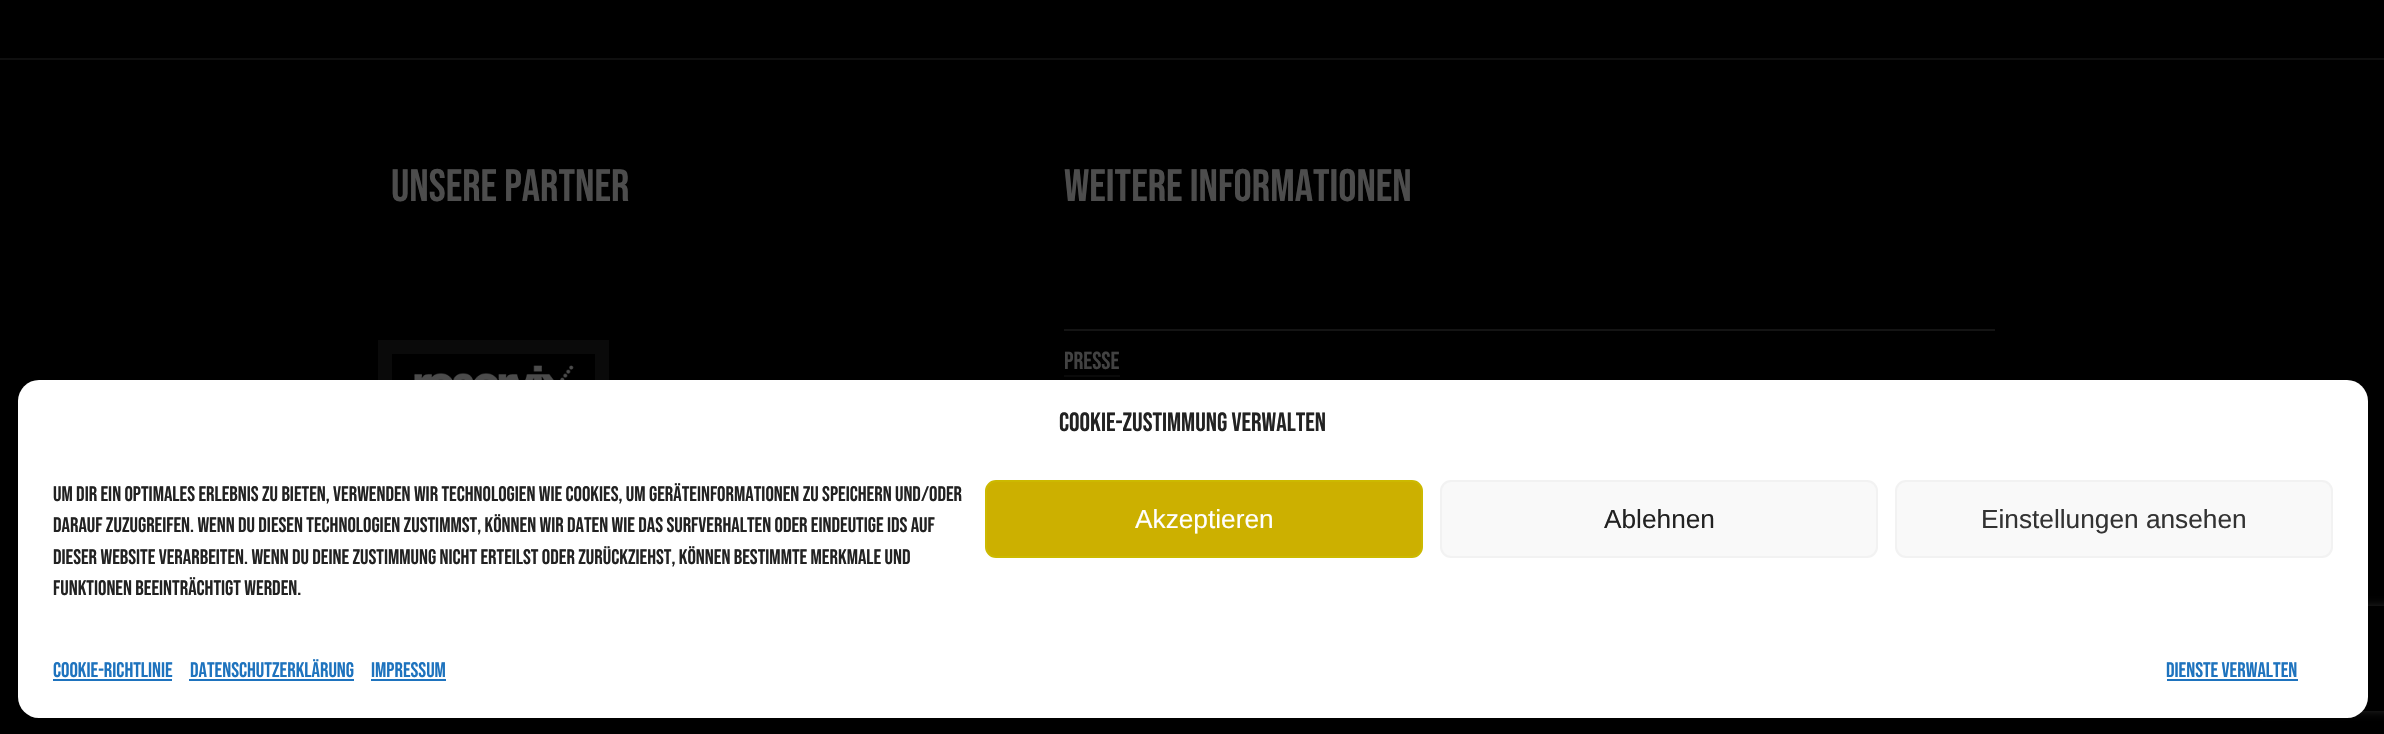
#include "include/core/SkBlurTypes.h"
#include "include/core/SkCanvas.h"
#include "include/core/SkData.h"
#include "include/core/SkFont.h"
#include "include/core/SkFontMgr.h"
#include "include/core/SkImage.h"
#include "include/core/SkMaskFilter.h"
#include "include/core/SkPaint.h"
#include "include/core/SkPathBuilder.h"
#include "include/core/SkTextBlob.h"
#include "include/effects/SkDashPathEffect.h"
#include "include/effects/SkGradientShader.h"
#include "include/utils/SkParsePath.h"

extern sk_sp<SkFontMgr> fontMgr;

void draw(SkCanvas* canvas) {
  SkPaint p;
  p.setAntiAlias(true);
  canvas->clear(SK_ColorBLACK);
  p.setColor(SkColorSetRGB(15, 15, 15));
  canvas->drawRect(SkRect::MakeLTRB(0, 58, 2384, 60), p);
  p.setStyle(SkPaint::kStroke_Style);
  p.setStrokeWidth(14);
  p.setColor(SkColorSetRGB(10, 10, 10));
  canvas->drawRect(SkRect::MakeLTRB(385, 347, 602, 438), p);
  canvas->drawImageRect(SkImages::DeferredFromEncodedData(SkData::MakeFromFileName("images/1.png")), SkRect::MakeLTRB(414, 365, 574, 380), SkSamplingOptions());
  p.setStyle(SkPaint::kFill_Style);
  p.setColor(SkColorSetRGB(20, 20, 20));
  canvas->drawRect(SkRect::MakeLTRB(1064, 329, 1995, 331), p);
  p.setColor(SkColorSetRGB(10, 10, 10));
  canvas->drawRect(SkRect::MakeLTRB(1064, 375, 1120, 377), p);
  canvas->save();
  canvas->clipPath(SkPathBuilder(SkPathFillType::kEvenOdd).moveTo(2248, 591).lineTo(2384, 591).lineTo(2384, 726).lineTo(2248, 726).close().moveTo(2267, 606).lineTo(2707, 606).cubicTo(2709, 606, 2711, 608, 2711, 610).lineTo(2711, 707).cubicTo(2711, 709, 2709, 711, 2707, 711).lineTo(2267, 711).cubicTo(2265, 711, 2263, 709, 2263, 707).lineTo(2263, 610).cubicTo(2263, 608, 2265, 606, 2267, 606).close().detach(), true);
  p.setColor(SkColorSetRGB(38, 38, 38));
  p.setMaskFilter(SkMaskFilter::MakeBlur(kNormal_SkBlurStyle, 4.5f));
  canvas->drawRoundRect(SkRect::MakeLTRB(2263, 606, 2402, 711), 4, 4, p);
  p.setMaskFilter(nullptr);
  canvas->restore();
  p.setColor(SK_ColorWHITE);
  canvas->drawRoundRect(SkRect::MakeLTRB(18, 380, 2368, 718), 21, 21, p);
  p.setColor(SkColorSetRGB(204, 176, 0));
  canvas->drawRoundRect(SkRect::MakeLTRB(986, 481, 1422, 557), 10, 10, p);
  p.setStyle(SkPaint::kStroke_Style);
  p.setStrokeWidth(2);
  p.setColor(SkColorSetRGB(204, 185, 0));
  canvas->drawRoundRect(SkRect::MakeLTRB(986, 481, 1422, 557), 10, 10, p);
  p.setStyle(SkPaint::kFill_Style);
  p.setColor(SkColorSetRGB(249, 249, 249));
  canvas->drawRoundRect(SkRect::MakeLTRB(1441, 481, 1877, 557), 10, 10, p);
  p.setStyle(SkPaint::kStroke_Style);
  p.setColor(SkColorSetRGB(242, 242, 242));
  canvas->drawRoundRect(SkRect::MakeLTRB(1441, 481, 1877, 557), 10, 10, p);
  p.setStyle(SkPaint::kFill_Style);
  p.setColor(SkColorSetRGB(249, 249, 249));
  canvas->drawRoundRect(SkRect::MakeLTRB(1896, 481, 2332, 557), 10, 10, p);
  p.setStyle(SkPaint::kStroke_Style);
  p.setColor(SkColorSetRGB(242, 242, 242));
  canvas->drawRoundRect(SkRect::MakeLTRB(1896, 481, 2332, 557), 10, 10, p);
  p.setStyle(SkPaint::kFill_Style);
  p.setColor(SkColorSetRGB(30, 115, 190));
  canvas->drawRect(SkRect::MakeLTRB(53, 679, 172, 681), p);
  canvas->drawRect(SkRect::MakeLTRB(189, 679, 354, 681), p);
  canvas->drawRect(SkRect::MakeLTRB(371, 679, 446, 681), p);
  canvas->drawRect(SkRect::MakeLTRB(2167, 679, 2298, 681), p);
  SkFont font1(fontMgr->matchFamilyStyle("Bebas Neue", SkFontStyle::Normal()), 45.5f);
  font1.setSubpixel(true);
  p.setColor(SkColorSetRGB(77, 77, 77));
  canvas->drawString("Unsere Partner", 391, 201, font1, p);
  canvas->drawString("Weitere Informationen", 1064, 201, font1, p);
  SkFont font2(fontMgr->matchFamilyStyle("Bebas Neue", SkFontStyle::Normal()), 24.5f);
  font2.setSubpixel(true);
  p.setColor(SkColorSetRGB(66, 66, 66));
  canvas->drawString("Presse", 1064, 369, font2, p);
  SkFont font3(fontMgr->matchFamilyStyle("Bebas Neue", SkFontStyle::Normal()), 26.25f);
  font3.setSubpixel(true);
  p.setColor(SkColorSetRGB(34, 34, 34));
  canvas->drawString("Cookie-Zustimmung verwalten", 1059, 431, font3, p);
  SkFont font4(fontMgr->matchFamilyStyle("Bebas Neue", SkFontStyle::Normal()), 21);
  font4.setSubpixel(true);
  canvas->drawString("Um dir ein optimales Erlebnis zu bieten, verwenden wir Technologien wie Cookies, um Geräteinformationen zu speichern und/oder", 53, 501, font4, p);
  canvas->drawString("darauf zuzugreifen. Wenn du diesen Technologien zustimmst, können wir Daten wie das Surfverhalten oder eindeutige IDs auf", 53, 532, font4, p);
  canvas->drawString("dieser Website verarbeiten. Wenn du deine Zustimmung nicht erteilst oder zurückziehst, können bestimmte Merkmale und", 53, 564, font4, p);
  canvas->drawString("Funktionen beeinträchtigt werden.", 53, 595, font4, p);
  SkFont font5(fontMgr->matchFamilyStyle("Liberation Sans", SkFontStyle::Normal()), 26.25f);
  font5.setSubpixel(true);
  p.setColor(SK_ColorWHITE);
  canvas->drawString("Akzeptieren", 1135, 528, font5, p);
  p.setColor(SkColorSetRGB(34, 34, 34));
  canvas->drawString("Ablehnen", 1604, 528, font5, p);
  p.setColor(SkColorSetRGB(51, 51, 51));
  canvas->drawString("Einstellungen ansehen", 1981, 528, font5, p);
  p.setColor(SkColorSetRGB(30, 115, 190));
  canvas->drawString("Cookie-Richtlinie", 53, 677, font4, p);
  canvas->drawString("Datenschutzerklärung", 190, 677, font4, p);
  canvas->drawString("Impressum", 371, 677, font4, p);
  canvas->drawString("Dienste verwalten", 2166, 677, font4, p);
}
